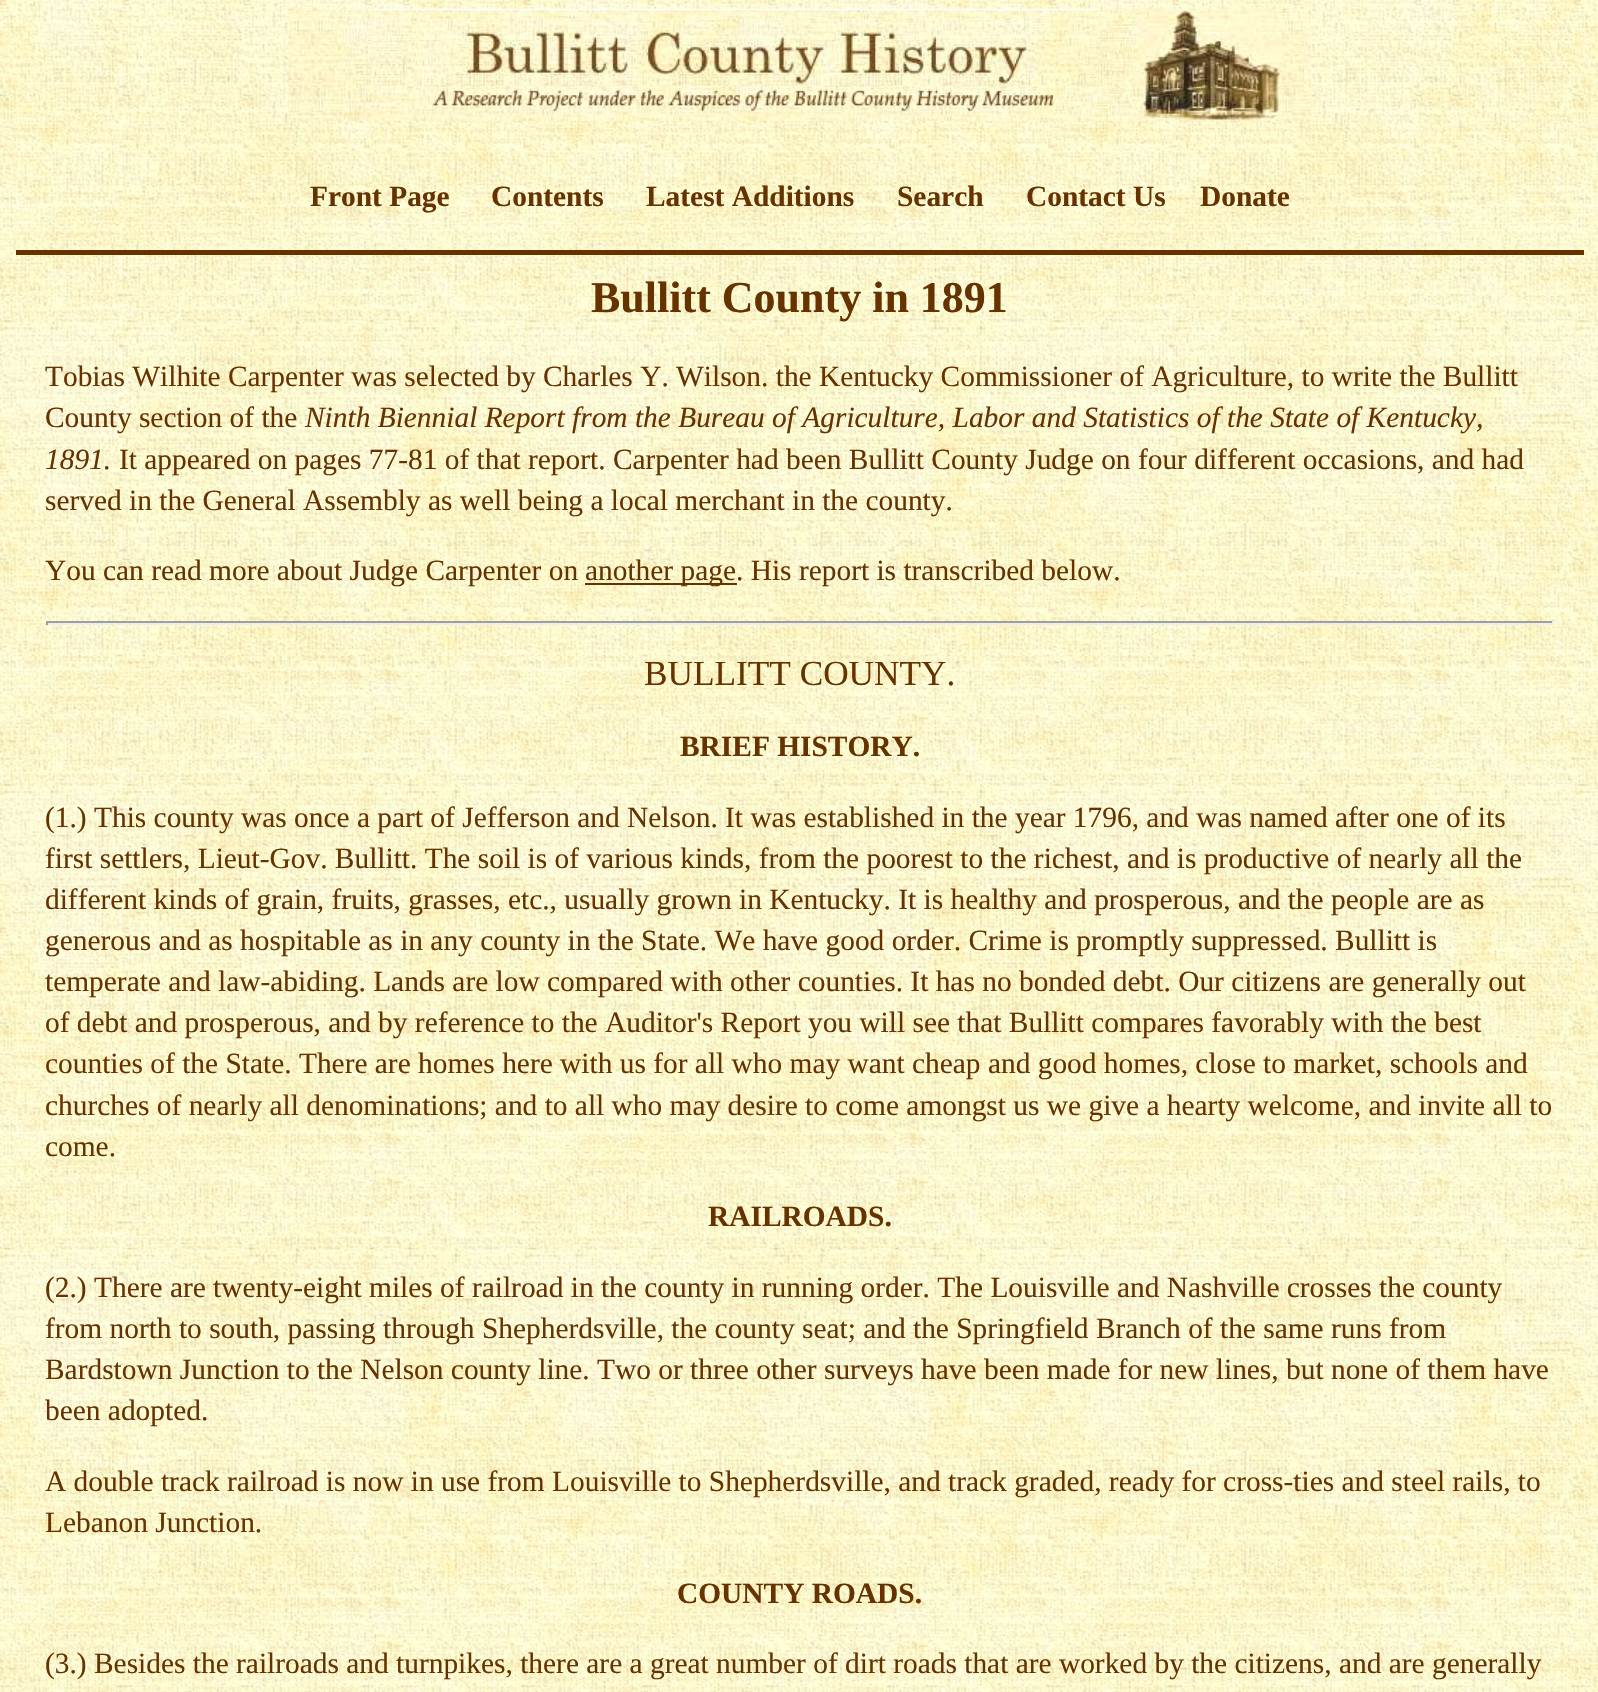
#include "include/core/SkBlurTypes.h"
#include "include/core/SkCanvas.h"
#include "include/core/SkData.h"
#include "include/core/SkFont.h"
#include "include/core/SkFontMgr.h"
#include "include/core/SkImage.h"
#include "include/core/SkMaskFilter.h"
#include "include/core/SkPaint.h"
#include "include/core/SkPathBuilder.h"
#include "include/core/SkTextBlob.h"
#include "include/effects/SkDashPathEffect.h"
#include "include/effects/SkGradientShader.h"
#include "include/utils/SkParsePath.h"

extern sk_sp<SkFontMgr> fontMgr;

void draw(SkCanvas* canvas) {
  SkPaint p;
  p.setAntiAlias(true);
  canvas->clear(SK_ColorWHITE);
  canvas->drawImageRect(SkImages::DeferredFromEncodedData(SkData::MakeFromFileName("images/1.png")), SkRect::MakeLTRB(0, 0, 1598, 1692), SkSamplingOptions());
  canvas->drawImageRect(SkImages::DeferredFromEncodedData(SkData::MakeFromFileName("images/2.png")), SkRect::MakeLTRB(288, 8, 1311, 121), SkSamplingOptions());
  p.setColor(SkColorSetRGB(102, 51, 0));
  canvas->drawRect(SkRect::MakeLTRB(16, 250, 1584, 255), p);
  canvas->drawRect(SkRect::MakeLTRB(585, 583, 737, 585), p);
  p.setColor(SkColorSetRGB(159, 159, 159));
  canvas->drawRect(SkRect::MakeLTRB(46, 621, 1554, 623), p);
  p.setColor(SkColorSetRGB(238, 238, 238));
  canvas->drawRect(SkRect::MakeLTRB(1552, 621, 1554, 625), p);
  canvas->drawRect(SkRect::MakeLTRB(46, 623, 1554, 625), p);
  p.setColor(SkColorSetRGB(159, 159, 159));
  canvas->drawRect(SkRect::MakeLTRB(46, 621, 48, 625), p);
  SkFont font1(fontMgr->matchFamilyStyle("Liberation Serif", SkFontStyle::Bold()), 29.4f);
  font1.setSubpixel(true);
  p.setColor(SkColorSetRGB(102, 51, 0));
  canvas->drawString("Front Page", 310, 206, font1, p);
  canvas->drawString("Contents", 491, 206, font1, p);
  canvas->drawString("Latest Additions", 646, 206, font1, p);
  canvas->drawString("Search", 897, 206, font1, p);
  canvas->drawString("Contact Us", 1026, 206, font1, p);
  canvas->drawString("Donate", 1200, 206, font1, p);
  SkFont font2(fontMgr->matchFamilyStyle("Liberation Serif", SkFontStyle::Bold()), 44);
  font2.setSubpixel(true);
  canvas->drawString("Bullitt County in 1891", 591, 312, font2, p);
  SkFont font3(fontMgr->matchFamilyStyle("Liberation Serif", SkFontStyle::Normal()), 29.4f);
  font3.setSubpixel(true);
  canvas->drawString("Tobias Wilhite Carpenter was selected by Charles Y. Wilson. the Kentucky Commissioner of Agriculture, to write the Bullitt", 45, 386, font3, p);
  canvas->drawString("County section of the", 45, 427, font3, p);
  SkFont font4(fontMgr->matchFamilyStyle("Liberation Serif", SkFontStyle::Italic()), 29.4f);
  font4.setSubpixel(true);
  canvas->drawString("Ninth Biennial Report from the Bureau of Agriculture, Labor and Statistics of the State of Kentucky,", 305, 427, font4, p);
  canvas->drawString("1891.", 45, 469, font4, p);
  canvas->drawString("It appeared on pages 77-81 of that report. Carpenter had been Bullitt County Judge on four different occasions, and had", 119, 469, font3, p);
  canvas->drawString("served in the General Assembly as well being a local merchant in the county.", 45, 510, font3, p);
  canvas->drawString("You can read more about Judge Carpenter on", 45, 580, font3, p);
  canvas->drawString("another page. His report is transcribed below.", 585, 580, font3, p);
  SkFont font5(fontMgr->matchFamilyStyle("Liberation Serif", SkFontStyle::Normal()), 35.25f);
  font5.setSubpixel(true);
  canvas->drawString("BULLITT COUNTY.", 644, 685, font5, p);
  canvas->drawString("BRIEF HISTORY.", 680, 756, font1, p);
  canvas->drawString("(1.) This county was once a part of Jefferson and Nelson. It was established in the year 1796, and was named after one of its", 45, 827, font3, p);
  canvas->drawString("first settlers, Lieut-Gov. Bullitt. The soil is of various kinds, from the poorest to the richest, and is productive of nearly all the", 45, 868, font3, p);
  canvas->drawString("different kinds of grain, fruits, grasses, etc., usually grown in Kentucky. It is healthy and prosperous, and the people are as", 45, 909, font3, p);
  canvas->drawString("generous and as hospitable as in any county in the State. We have good order. Crime is promptly suppressed. Bullitt is", 45, 950, font3, p);
  canvas->drawString("temperate and law-abiding. Lands are low compared with other counties. It has no bonded debt. Our citizens are generally out", 45, 991, font3, p);
  canvas->drawString("of debt and prosperous, and by reference to the Auditor's Report you will see that Bullitt compares favorably with the best", 45, 1032, font3, p);
  canvas->drawString("counties of the State. There are homes here with us for all who may want cheap and good homes, close to market, schools and", 45, 1073, font3, p);
  canvas->drawString("churches of nearly all denominations; and to all who may desire to come amongst us we give a hearty welcome, and invite all to", 45, 1115, font3, p);
  canvas->drawString("come.", 45, 1156, font3, p);
  canvas->drawString("RAILROADS.", 708, 1226, font1, p);
  canvas->drawString("(2.) There are twenty-eight miles of railroad in the county in running order. The Louisville and Nashville crosses the county", 45, 1297, font3, p);
  canvas->drawString("from north to south, passing through Shepherdsville, the county seat; and the Springfield Branch of the same runs from", 45, 1338, font3, p);
  canvas->drawString("Bardstown Junction to the Nelson county line. Two or three other surveys have been made for new lines, but none of them have", 45, 1379, font3, p);
  canvas->drawString("been adopted.", 45, 1420, font3, p);
  canvas->drawString("A double track railroad is now in use from Louisville to Shepherdsville, and track graded, ready for cross-ties and steel rails, to", 45, 1491, font3, p);
  canvas->drawString("Lebanon Junction.", 45, 1532, font3, p);
  canvas->drawString("COUNTY ROADS.", 677, 1603, font1, p);
  canvas->drawString("(3.) Besides the railroads and turnpikes, there are a great number of dirt roads that are worked by the citizens, and are generally", 45, 1673, font3, p);
}
